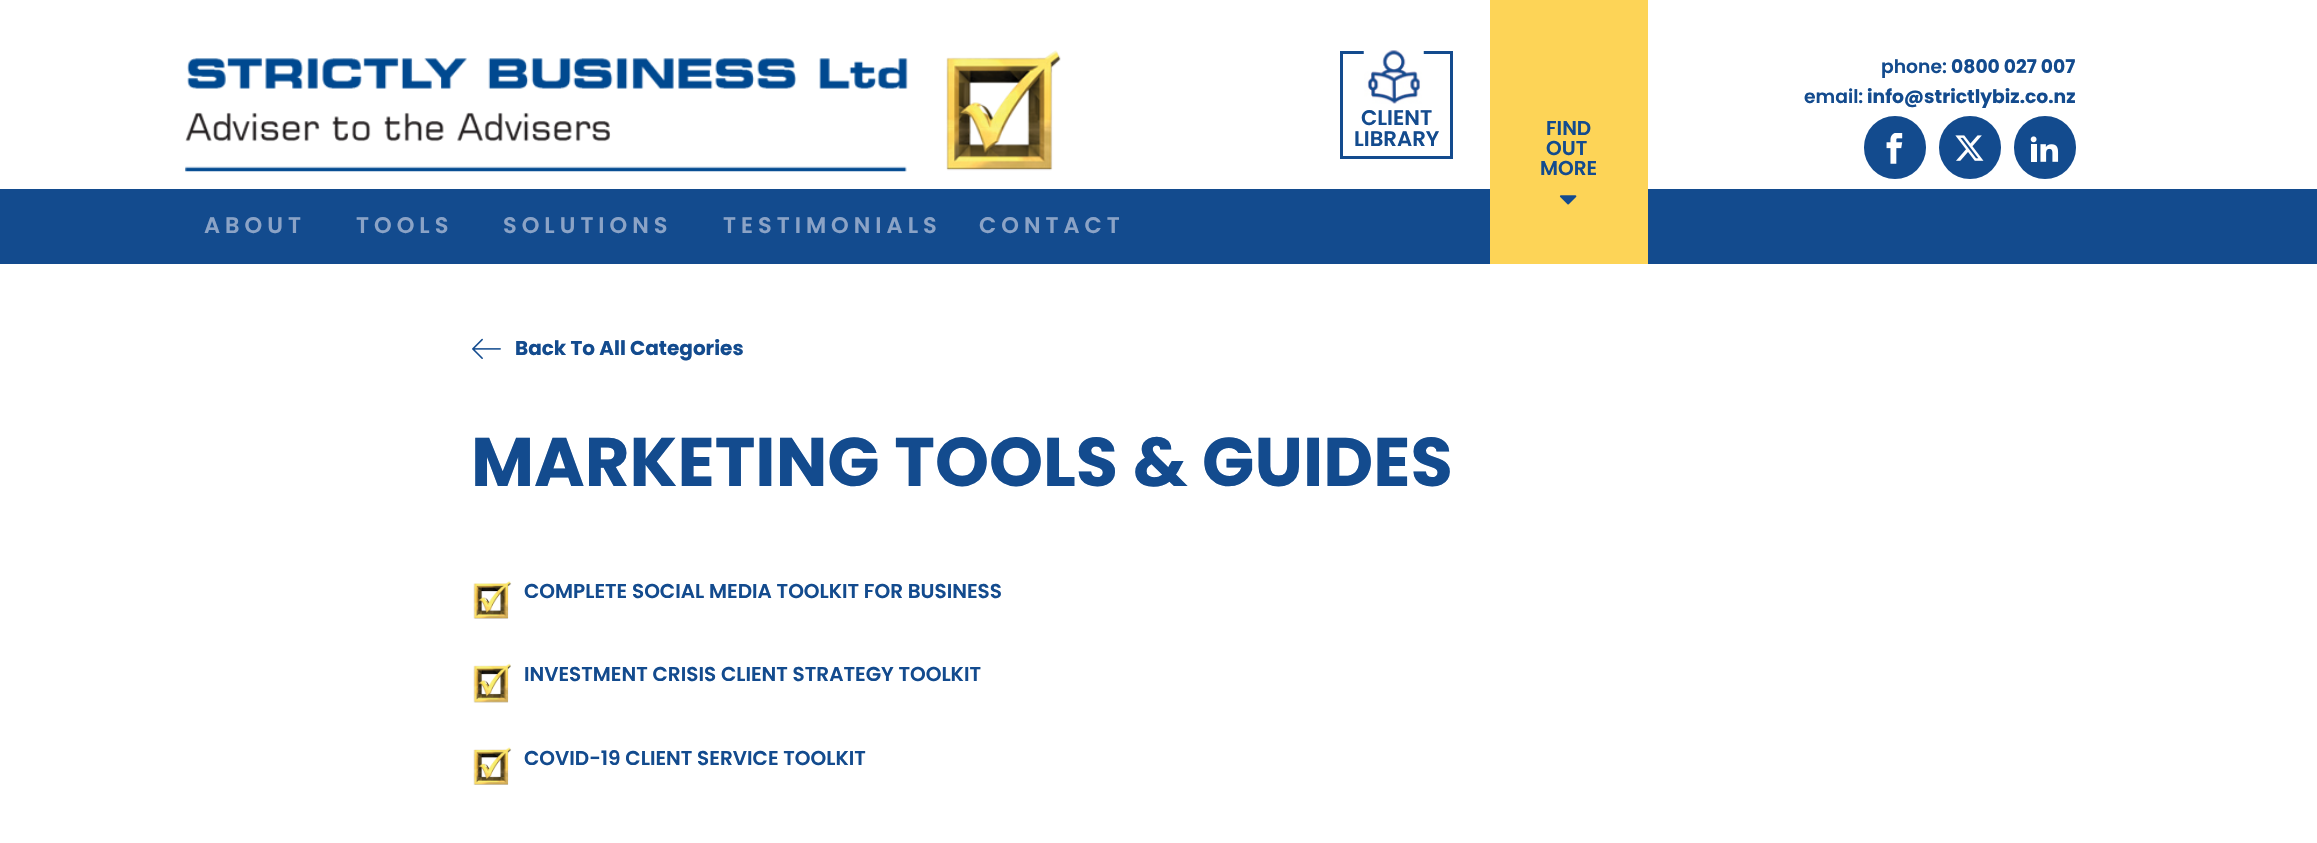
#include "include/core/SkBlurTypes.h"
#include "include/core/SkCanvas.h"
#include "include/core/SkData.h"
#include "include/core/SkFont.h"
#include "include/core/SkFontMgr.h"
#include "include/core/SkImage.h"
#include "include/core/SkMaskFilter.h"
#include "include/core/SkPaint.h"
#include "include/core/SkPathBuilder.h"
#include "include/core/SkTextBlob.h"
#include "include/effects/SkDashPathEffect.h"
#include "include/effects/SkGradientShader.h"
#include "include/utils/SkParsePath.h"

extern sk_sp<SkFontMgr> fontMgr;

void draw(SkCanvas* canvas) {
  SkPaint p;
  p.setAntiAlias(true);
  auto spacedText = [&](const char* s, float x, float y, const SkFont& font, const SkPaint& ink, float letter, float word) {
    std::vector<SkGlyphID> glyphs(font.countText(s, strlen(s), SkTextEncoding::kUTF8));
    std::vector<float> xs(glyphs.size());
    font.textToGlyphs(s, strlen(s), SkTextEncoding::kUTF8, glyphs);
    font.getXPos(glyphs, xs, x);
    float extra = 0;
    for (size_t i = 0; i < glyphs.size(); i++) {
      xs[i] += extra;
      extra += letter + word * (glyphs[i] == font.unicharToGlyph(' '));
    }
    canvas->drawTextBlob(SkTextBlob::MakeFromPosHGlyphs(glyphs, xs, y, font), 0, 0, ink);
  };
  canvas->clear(SK_ColorWHITE);
  canvas->drawImageRect(SkImages::DeferredFromEncodedData(SkData::MakeFromFileName("images/1.png")), SkRect::MakeLTRB(185, 50, 1061, 172), SkSamplingOptions());
  p.setColor(SkColorSetRGB(19, 75, 142));
  canvas->drawRoundRect(SkRect::MakeLTRB(1864, 116, 1926, 179), 31, 31, p);
  canvas->drawImageRect(SkImages::DeferredFromEncodedData(SkData::MakeFromFileName("images/2.png")), SkRect::MakeLTRB(1886, 133, 1903, 164), SkSamplingOptions());
  canvas->drawRoundRect(SkRect::MakeLTRB(1939, 116, 2001, 179), 31, 31, p);
  canvas->drawImageRect(SkImages::DeferredFromEncodedData(SkData::MakeFromFileName("images/3.png")), SkRect::MakeLTRB(1955, 135, 1984, 161), SkSamplingOptions());
  canvas->drawRoundRect(SkRect::MakeLTRB(2014, 116, 2076, 179), 31, 31, p);
  canvas->drawImageRect(SkImages::DeferredFromEncodedData(SkData::MakeFromFileName("images/4.png")), SkRect::MakeLTRB(2030, 136, 2059, 162), SkSamplingOptions());
  p.setStyle(SkPaint::kStroke_Style);
  p.setStrokeWidth(3);
  canvas->drawRect(SkRect::MakeLTRB(1341.5f, 52.5f, 1451.5f, 157.5f), p);
  canvas->drawImageRect(SkImages::DeferredFromEncodedData(SkData::MakeFromFileName("images/5.png")), SkRect::MakeLTRB(1363, 50, 1424, 104), SkSamplingOptions());
  p.setStyle(SkPaint::kFill_Style);
  canvas->drawRect(SkRect::MakeLTRB(0, 189, 2317, 264), p);
  p.setColor(SkColorSetRGB(253, 212, 87));
  canvas->drawRect(SkRect::MakeLTRB(1490, 0, 1648, 264), p);
  canvas->drawImageRect(SkImages::DeferredFromEncodedData(SkData::MakeFromFileName("images/6.png")), SkRect::MakeLTRB(1559, 195, 1577, 205), SkSamplingOptions());
  canvas->drawImageRect(SkImages::DeferredFromEncodedData(SkData::MakeFromFileName("images/7.png")), SkRect::MakeLTRB(472, 338, 501, 359), SkSamplingOptions());
  canvas->drawImageRect(SkImages::DeferredFromEncodedData(SkData::MakeFromFileName("images/8.png")), SkRect::MakeLTRB(473, 581, 512, 619), SkSamplingOptions());
  canvas->drawImageRect(SkImages::DeferredFromEncodedData(SkData::MakeFromFileName("images/9.png")), SkRect::MakeLTRB(473, 663, 511, 703), SkSamplingOptions());
  canvas->drawImageRect(SkImages::DeferredFromEncodedData(SkData::MakeFromFileName("images/10.png")), SkRect::MakeLTRB(473, 747, 512, 785), SkSamplingOptions());
  SkFont font1(fontMgr->matchFamilyStyle("Poppins", SkFontStyle(600, SkFontStyle::kNormal_Width, SkFontStyle::kUpright_Slant)), 18.75f);
  font1.setSubpixel(true);
  p.setColor(SkColorSetRGB(19, 75, 142));
  canvas->drawString("phone:", 1881, 73, font1, p);
  SkFont font2(fontMgr->matchFamilyStyle("Poppins", SkFontStyle::Bold()), 18.75f);
  font2.setSubpixel(true);
  canvas->drawString("0800 027 007", 1951, 73, font2, p);
  canvas->drawString("email:", 1804, 103, font1, p);
  canvas->drawString("info@strictlybiz.co.nz", 1867, 103, font2, p);
  SkFont font3(fontMgr->matchFamilyStyle("Poppins", SkFontStyle(600, SkFontStyle::kNormal_Width, SkFontStyle::kUpright_Slant)), 21.25f);
  font3.setSubpixel(true);
  canvas->drawString("CLIENT", 1361, 125, font3, p);
  canvas->drawString("LIBRARY", 1354, 146, font3, p);
  SkFont font4(fontMgr->matchFamilyStyle("Poppins", SkFontStyle(600, SkFontStyle::kNormal_Width, SkFontStyle::kUpright_Slant)), 20);
  font4.setSubpixel(true);
  canvas->drawString("FIND", 1546, 135, font4, p);
  canvas->drawString("OUT", 1546, 155, font4, p);
  canvas->drawString("MORE", 1540, 175, font4, p);
  SkFont font5(fontMgr->matchFamilyStyle("Poppins", SkFontStyle(600, SkFontStyle::kNormal_Width, SkFontStyle::kUpright_Slant)), 22.5f);
  font5.setSubpixel(true);
  p.setColor(SkColorSetRGB(139, 163, 198));
  spacedText("ABOUT", 204, 233, font5, p, 5, 0);
  spacedText("TOOLS", 356, 233, font5, p, 5, 0);
  spacedText("SOLUTIONS", 503, 233, font5, p, 5, 0);
  spacedText("TESTIMONIALS", 723, 233, font5, p, 5, 0);
  spacedText("CONTACT", 979, 233, font5, p, 5, 0);
  SkFont font6(fontMgr->matchFamilyStyle("Poppins", SkFontStyle::Bold()), 20);
  font6.setSubpixel(true);
  p.setColor(SkColorSetRGB(19, 75, 142));
  canvas->drawString("Back To All Categories", 515, 355, font6, p);
  SkFont font7(fontMgr->matchFamilyStyle("Poppins", SkFontStyle::Bold()), 68.75f);
  font7.setSubpixel(true);
  canvas->drawString("MARKETING TOOLS & GUIDES", 471, 486, font7, p);
  canvas->drawString("COMPLETE SOCIAL MEDIA TOOLKIT FOR BUSINESS", 524, 598, font4, p);
  canvas->drawString("INVESTMENT CRISIS CLIENT STRATEGY TOOLKIT", 524, 681, font4, p);
  canvas->drawString("COVID-19 CLIENT SERVICE TOOLKIT", 524, 765, font4, p);
}
